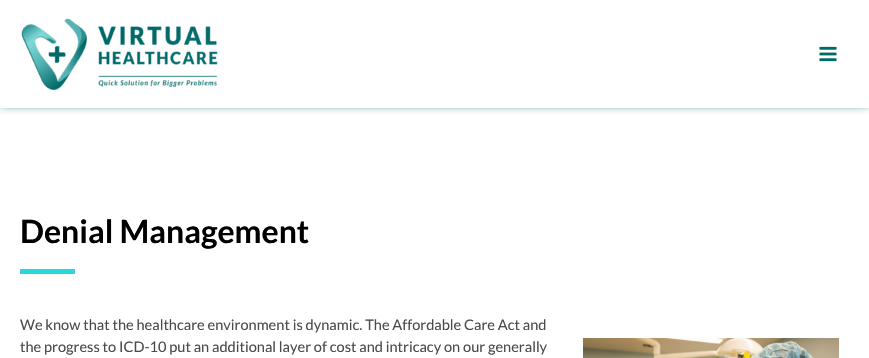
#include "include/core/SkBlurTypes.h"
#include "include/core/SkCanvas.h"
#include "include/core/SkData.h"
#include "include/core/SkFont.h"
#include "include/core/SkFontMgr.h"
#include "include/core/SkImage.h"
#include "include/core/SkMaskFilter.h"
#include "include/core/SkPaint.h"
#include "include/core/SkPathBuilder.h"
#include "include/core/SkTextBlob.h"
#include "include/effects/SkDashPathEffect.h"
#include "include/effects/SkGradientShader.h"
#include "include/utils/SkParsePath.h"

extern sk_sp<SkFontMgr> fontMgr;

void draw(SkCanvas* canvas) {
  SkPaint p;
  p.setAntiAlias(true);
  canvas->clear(SK_ColorWHITE);
  canvas->save();
  canvas->clipRect(SkRect::MakeLTRB(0, 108, 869, 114));
  p.setColor(SkColorSetRGB(1, 105, 105));
  p.setMaskFilter(SkMaskFilter::MakeBlur(kNormal_SkBlurStyle, 5));
  canvas->drawRect(SkRect::MakeLTRB(0, -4, 869, 104), p);
  p.setMaskFilter(nullptr);
  canvas->restore();
  canvas->drawImageRect(SkImages::DeferredFromEncodedData(SkData::MakeFromFileName("images/1.png")), SkRect::MakeLTRB(21, 18, 218, 91), SkSamplingOptions());
  canvas->drawImageRect(SkImages::DeferredFromEncodedData(SkData::MakeFromFileName("images/2.png")), SkRect::MakeLTRB(819, 46, 837, 62), SkSamplingOptions());
  p.setColor(SkColorSetRGB(41, 216, 219));
  canvas->drawRect(SkRect::MakeLTRB(20, 269, 75, 274), p);
  canvas->drawImageRect(SkImages::DeferredFromEncodedData(SkData::MakeFromFileName("images/3.png")), SkRect::MakeLTRB(583, 338, 839, 358), SkSamplingOptions());
  SkFont font1(fontMgr->matchFamilyStyle("Lato", SkFontStyle::Bold()), 32);
  font1.setSubpixel(true);
  p.setColor(SK_ColorBLACK);
  canvas->drawString("Denial Management", 20, 243, font1, p);
  SkFont font2(fontMgr->matchFamilyStyle("Lato", SkFontStyle::Normal()), 14.6f);
  font2.setSubpixel(true);
  p.setColor(SkColorSetRGB(75, 75, 75));
  canvas->drawString("We know that the healthcare environment is dynamic. The Affordable Care Act and", 20, 330, font2, p);
  canvas->drawString("the progress to ICD-10 put an additional layer of cost and intricacy on our generally", 20, 352, font2, p);
}
